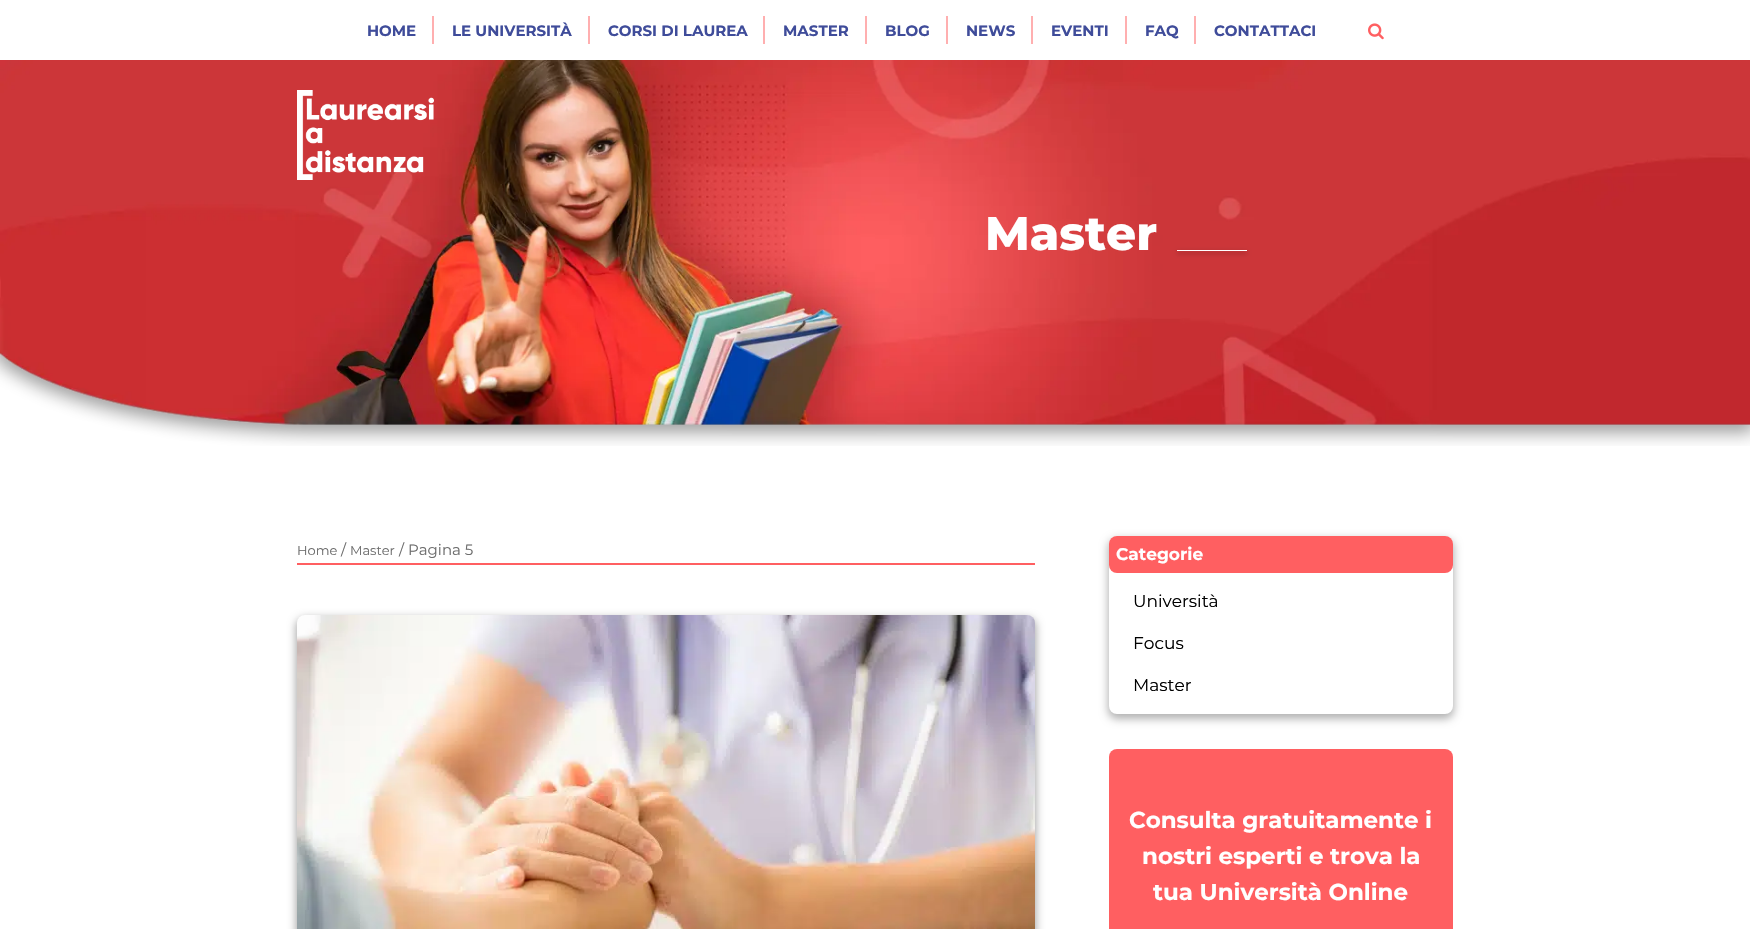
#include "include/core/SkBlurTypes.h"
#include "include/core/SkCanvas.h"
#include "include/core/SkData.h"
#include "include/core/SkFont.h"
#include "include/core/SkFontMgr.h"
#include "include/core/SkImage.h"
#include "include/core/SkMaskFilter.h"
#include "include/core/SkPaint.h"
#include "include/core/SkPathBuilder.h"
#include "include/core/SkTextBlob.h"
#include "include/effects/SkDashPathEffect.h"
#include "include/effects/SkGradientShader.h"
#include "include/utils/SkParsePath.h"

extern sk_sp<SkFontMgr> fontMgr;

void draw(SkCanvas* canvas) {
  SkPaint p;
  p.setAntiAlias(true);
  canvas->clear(SK_ColorWHITE);
  p.setColor(SkColorSetRGB(255, 175, 176));
  canvas->drawRect(SkRect::MakeLTRB(432, 16, 434, 44), p);
  canvas->drawRect(SkRect::MakeLTRB(588, 16, 590, 44), p);
  canvas->drawRect(SkRect::MakeLTRB(763, 16, 765, 44), p);
  canvas->drawRect(SkRect::MakeLTRB(865, 16, 867, 44), p);
  canvas->drawRect(SkRect::MakeLTRB(946, 16, 948, 44), p);
  canvas->drawRect(SkRect::MakeLTRB(1031, 16, 1033, 44), p);
  canvas->drawRect(SkRect::MakeLTRB(1125, 16, 1127, 44), p);
  canvas->drawRect(SkRect::MakeLTRB(1194, 16, 1196, 44), p);
  canvas->drawImageRect(SkImages::DeferredFromEncodedData(SkData::MakeFromFileName("images/1.png")), SkRect::MakeLTRB(1368, 23, 1384, 40), SkSamplingOptions());
  canvas->drawImageRect(SkImages::DeferredFromEncodedData(SkData::MakeFromFileName("images/2.png")), SkRect::MakeLTRB(0, 60, 1750, 446), SkSamplingOptions());
  canvas->drawImageRect(SkImages::DeferredFromEncodedData(SkData::MakeFromFileName("images/3.png")), SkRect::MakeLTRB(297, 90, 434, 180), SkSamplingOptions());
  p.setColor(SkColorSetRGB(109, 23, 25));
  p.setMaskFilter(SkMaskFilter::MakeBlur(kNormal_SkBlurStyle, 2.5f));
  canvas->drawRect(SkRect::MakeLTRB(1177, 252, 1247, 253), p);
  p.setMaskFilter(nullptr);
  p.setColor(SK_ColorWHITE);
  canvas->drawRect(SkRect::MakeLTRB(1177, 250, 1247, 251), p);
  p.setColor(SkColorSetRGB(255, 95, 97));
  canvas->drawRect(SkRect::MakeLTRB(297, 563, 1035, 565), p);
  p.setColor(SkColorSetARGB(89, 0, 0, 0));
  p.setMaskFilter(SkMaskFilter::MakeBlur(kNormal_SkBlurStyle, 4));
  canvas->drawRoundRect(SkRect::MakeLTRB(296, 618, 1036, 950), 9, 9, p);
  p.setMaskFilter(nullptr);
  canvas->drawImageRect(SkImages::DeferredFromEncodedData(SkData::MakeFromFileName("images/4.png")), SkRect::MakeLTRB(297, 615, 1035, 929), SkSamplingOptions());
  p.setColor(SkColorSetARGB(77, 0, 0, 0));
  p.setMaskFilter(SkMaskFilter::MakeBlur(kNormal_SkBlurStyle, 4));
  canvas->drawRoundRect(SkRect::MakeLTRB(1108, 539, 1454, 719), 9, 9, p);
  p.setMaskFilter(nullptr);
  p.setColor(SK_ColorWHITE);
  canvas->drawRoundRect(SkRect::MakeLTRB(1109, 536, 1453, 714), 8, 8, p);
  p.setColor(SkColorSetRGB(255, 95, 97));
  canvas->drawRoundRect(SkRect::MakeLTRB(1109, 536, 1453, 573), 8, 8, p);
  canvas->drawRoundRect(SkRect::MakeLTRB(1109, 749, 1453, 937), 8, 8, p);
  SkFont font1(fontMgr->matchFamilyStyle("Montserrat", SkFontStyle::Bold()), 15);
  font1.setSubpixel(true);
  p.setColor(SkColorSetRGB(63, 76, 154));
  canvas->drawString("HOME", 367, 36, font1, p);
  canvas->drawString("LE UNIVERSITÀ", 452, 36, font1, p);
  canvas->drawString("CORSI DI LAUREA", 608, 36, font1, p);
  canvas->drawString("MASTER", 783, 36, font1, p);
  canvas->drawString("BLOG", 885, 36, font1, p);
  canvas->drawString("NEWS", 966, 36, font1, p);
  canvas->drawString("EVENTI", 1051, 36, font1, p);
  canvas->drawString("FAQ", 1145, 36, font1, p);
  canvas->drawString("CONTATTACI", 1214, 36, font1, p);
  SkFont font2(fontMgr->matchFamilyStyle("Montserrat", SkFontStyle(800, SkFontStyle::kNormal_Width, SkFontStyle::kUpright_Slant)), 47);
  font2.setSubpixel(true);
  p.setColor(SK_ColorWHITE);
  canvas->drawString("Master", 985, 250, font2, p);
  SkFont font3(fontMgr->matchFamilyStyle("Montserrat", SkFontStyle::Normal()), 13);
  font3.setSubpixel(true);
  p.setColor(SkColorSetRGB(108, 108, 108));
  canvas->drawString("Home", 297, 555, font3, p);
  SkFont font4(fontMgr->matchFamilyStyle("Montserrat", SkFontStyle::Normal()), 15);
  font4.setSubpixel(true);
  canvas->drawString("/", 341, 555, font4, p);
  canvas->drawString("Master", 350, 555, font3, p);
  canvas->drawString("/ Pagina 5", 399, 555, font4, p);
  SkFont font5(fontMgr->matchFamilyStyle("Montserrat", SkFontStyle::Bold()), 17);
  font5.setSubpixel(true);
  p.setColor(SK_ColorWHITE);
  canvas->drawString("Categorie", 1116, 560, font5, p);
  SkFont font6(fontMgr->matchFamilyStyle("Montserrat", SkFontStyle::Normal()), 17);
  font6.setSubpixel(true);
  p.setColor(SK_ColorBLACK);
  canvas->drawString("Università", 1133, 607, font6, p);
  canvas->drawString("Focus", 1133, 649, font6, p);
  canvas->drawString("Master", 1133, 691, font6, p);
  SkFont font7(fontMgr->matchFamilyStyle("Montserrat", SkFontStyle::Bold()), 23);
  font7.setSubpixel(true);
  p.setColor(SK_ColorWHITE);
  canvas->drawString("Consulta gratuitamente i", 1129, 828, font7, p);
  canvas->drawString("nostri esperti e trova la", 1142, 864, font7, p);
  canvas->drawString("tua Università Online", 1153, 900, font7, p);
}
